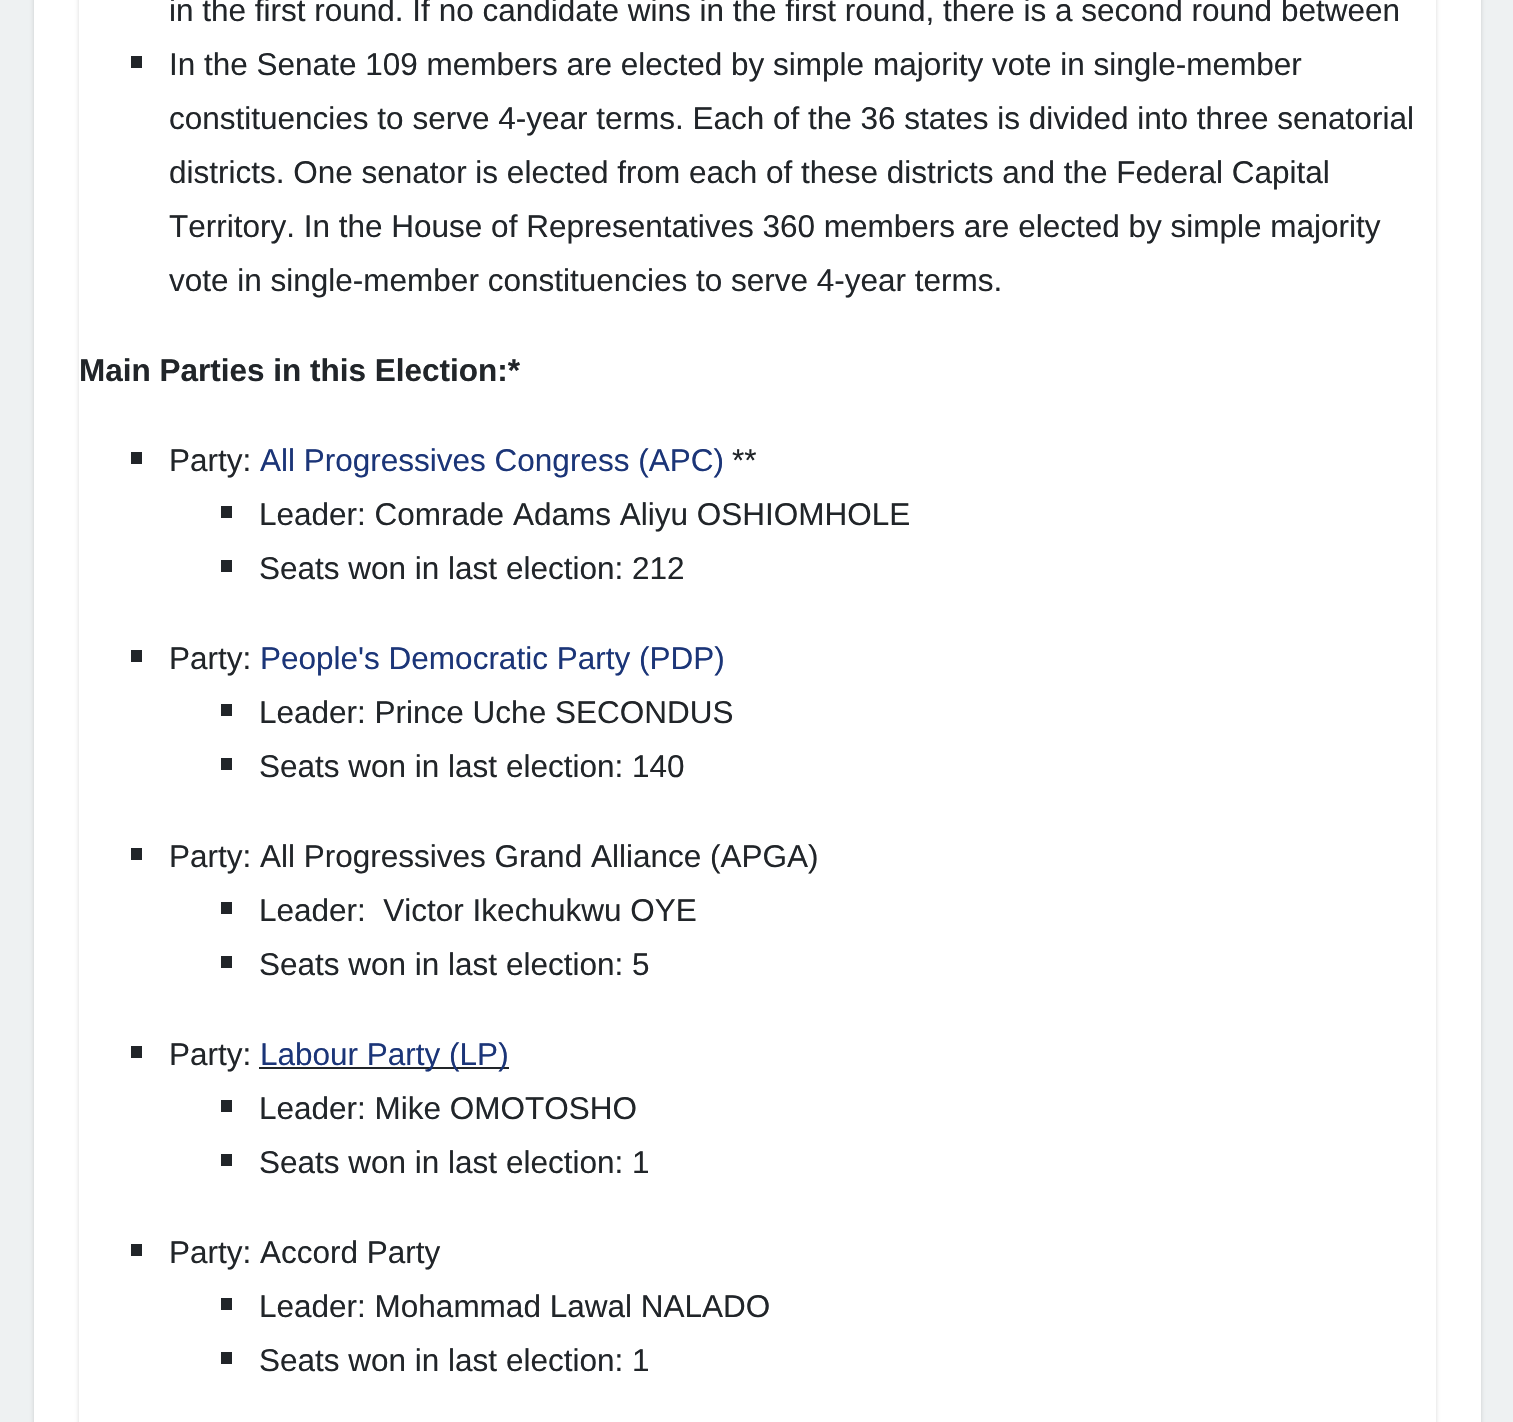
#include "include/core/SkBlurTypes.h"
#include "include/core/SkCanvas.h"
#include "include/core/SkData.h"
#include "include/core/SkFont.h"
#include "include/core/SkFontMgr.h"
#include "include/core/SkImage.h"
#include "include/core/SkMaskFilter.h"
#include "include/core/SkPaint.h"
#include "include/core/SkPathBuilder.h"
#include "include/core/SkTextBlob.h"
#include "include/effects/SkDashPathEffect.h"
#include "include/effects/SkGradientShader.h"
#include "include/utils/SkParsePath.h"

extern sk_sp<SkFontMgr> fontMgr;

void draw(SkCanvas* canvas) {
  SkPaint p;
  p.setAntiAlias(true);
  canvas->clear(SkColorSetRGB(238, 241, 242));
  p.setColor(SkColorSetARGB(38, 0, 0, 0));
  p.setMaskFilter(SkMaskFilter::MakeBlur(kNormal_SkBlurStyle, 2));
  canvas->drawRoundRect(SkRect::MakeLTRB(34, -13, 1481, 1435), 7, 7, p);
  p.setMaskFilter(nullptr);
  p.setColor(SK_ColorWHITE);
  canvas->drawRect(SkRect::MakeLTRB(34, 0, 1481, 1422), p);
  p.setColor(SkColorSetARGB(38, 0, 0, 0));
  p.setMaskFilter(SkMaskFilter::MakeBlur(kNormal_SkBlurStyle, 2));
  canvas->drawRoundRect(SkRect::MakeLTRB(79, -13, 1436, 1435), 7, 7, p);
  p.setMaskFilter(nullptr);
  p.setColor(SK_ColorWHITE);
  canvas->drawRect(SkRect::MakeLTRB(79, 0, 1436, 1422), p);
  p.setColor(SkColorSetRGB(33, 37, 41));
  canvas->drawRect(SkRect::MakeLTRB(131, 56, 142, 68), p);
  canvas->drawRect(SkRect::MakeLTRB(131, 452, 142, 464), p);
  canvas->drawRect(SkRect::MakeLTRB(221, 506, 232, 518), p);
  canvas->drawRect(SkRect::MakeLTRB(221, 560, 232, 572), p);
  canvas->drawRect(SkRect::MakeLTRB(131, 650, 142, 662), p);
  canvas->drawRect(SkRect::MakeLTRB(221, 704, 232, 716), p);
  canvas->drawRect(SkRect::MakeLTRB(221, 758, 232, 770), p);
  canvas->drawRect(SkRect::MakeLTRB(131, 848, 142, 860), p);
  canvas->drawRect(SkRect::MakeLTRB(221, 902, 232, 914), p);
  canvas->drawRect(SkRect::MakeLTRB(221, 956, 232, 968), p);
  canvas->drawRect(SkRect::MakeLTRB(131, 1046, 142, 1058), p);
  canvas->drawRect(SkRect::MakeLTRB(259, 1067, 509, 1069), p);
  canvas->drawRect(SkRect::MakeLTRB(221, 1100, 232, 1112), p);
  canvas->drawRect(SkRect::MakeLTRB(221, 1154, 232, 1166), p);
  canvas->drawRect(SkRect::MakeLTRB(131, 1244, 142, 1256), p);
  canvas->drawRect(SkRect::MakeLTRB(221, 1298, 232, 1310), p);
  canvas->drawRect(SkRect::MakeLTRB(221, 1352, 232, 1364), p);
  SkFont font1(fontMgr->matchFamilyStyle("Liberation Sans", SkFontStyle::Normal()), 31.5f);
  font1.setSubpixel(true);
  canvas->drawString("in the first round. If no candidate wins in the first round, there is a second round between", 169, 21, font1, p);
  canvas->drawString("In the Senate 109 members are elected by simple majority vote in single-member", 169, 75, font1, p);
  canvas->drawString("constituencies to serve 4-year terms. Each of the 36 states is divided into three senatorial", 169, 129, font1, p);
  canvas->drawString("districts. One senator is elected from each of these districts and the Federal Capital", 169, 183, font1, p);
  canvas->drawString("Territory. In the House of Representatives 360 members are elected by simple majority", 169, 237, font1, p);
  canvas->drawString("vote in single-member constituencies to serve 4-year terms.", 169, 291, font1, p);
  SkFont font2(fontMgr->matchFamilyStyle("Liberation Sans", SkFontStyle::Bold()), 31.5f);
  font2.setSubpixel(true);
  canvas->drawString("Main Parties in this Election:*", 79, 381, font2, p);
  canvas->drawString("Party:", 169, 471, font1, p);
  p.setColor(SkColorSetRGB(27, 53, 120));
  canvas->drawString("All Progressives Congress (APC)", 260, 471, font1, p);
  p.setColor(SkColorSetRGB(33, 37, 41));
  canvas->drawString("**", 732, 471, font1, p);
  canvas->drawString("Leader: Comrade Adams Aliyu OSHIOMHOLE", 259, 525, font1, p);
  canvas->drawString("Seats won in last election: 212", 259, 579, font1, p);
  canvas->drawString("Party:", 169, 669, font1, p);
  p.setColor(SkColorSetRGB(27, 53, 120));
  canvas->drawString("People's Democratic Party (PDP)", 260, 669, font1, p);
  p.setColor(SkColorSetRGB(33, 37, 41));
  canvas->drawString("Leader: Prince Uche SECONDUS", 259, 723, font1, p);
  canvas->drawString("Seats won in last election: 140", 259, 777, font1, p);
  canvas->drawString("Party: All Progressives Grand Alliance (APGA)", 169, 867, font1, p);
  canvas->drawString("Leader:  Victor Ikechukwu OYE", 259, 921, font1, p);
  canvas->drawString("Seats won in last election: 5", 259, 975, font1, p);
  canvas->drawString("Party:", 169, 1065, font1, p);
  p.setColor(SkColorSetRGB(27, 53, 120));
  canvas->drawString("Labour Party (LP)", 260, 1065, font1, p);
  p.setColor(SkColorSetRGB(33, 37, 41));
  canvas->drawString("Leader: Mike OMOTOSHO", 259, 1119, font1, p);
  canvas->drawString("Seats won in last election: 1", 259, 1173, font1, p);
  canvas->drawString("Party: Accord Party", 169, 1263, font1, p);
  canvas->drawString("Leader: Mohammad Lawal NALADO", 259, 1317, font1, p);
  canvas->drawString("Seats won in last election: 1", 259, 1371, font1, p);
}
